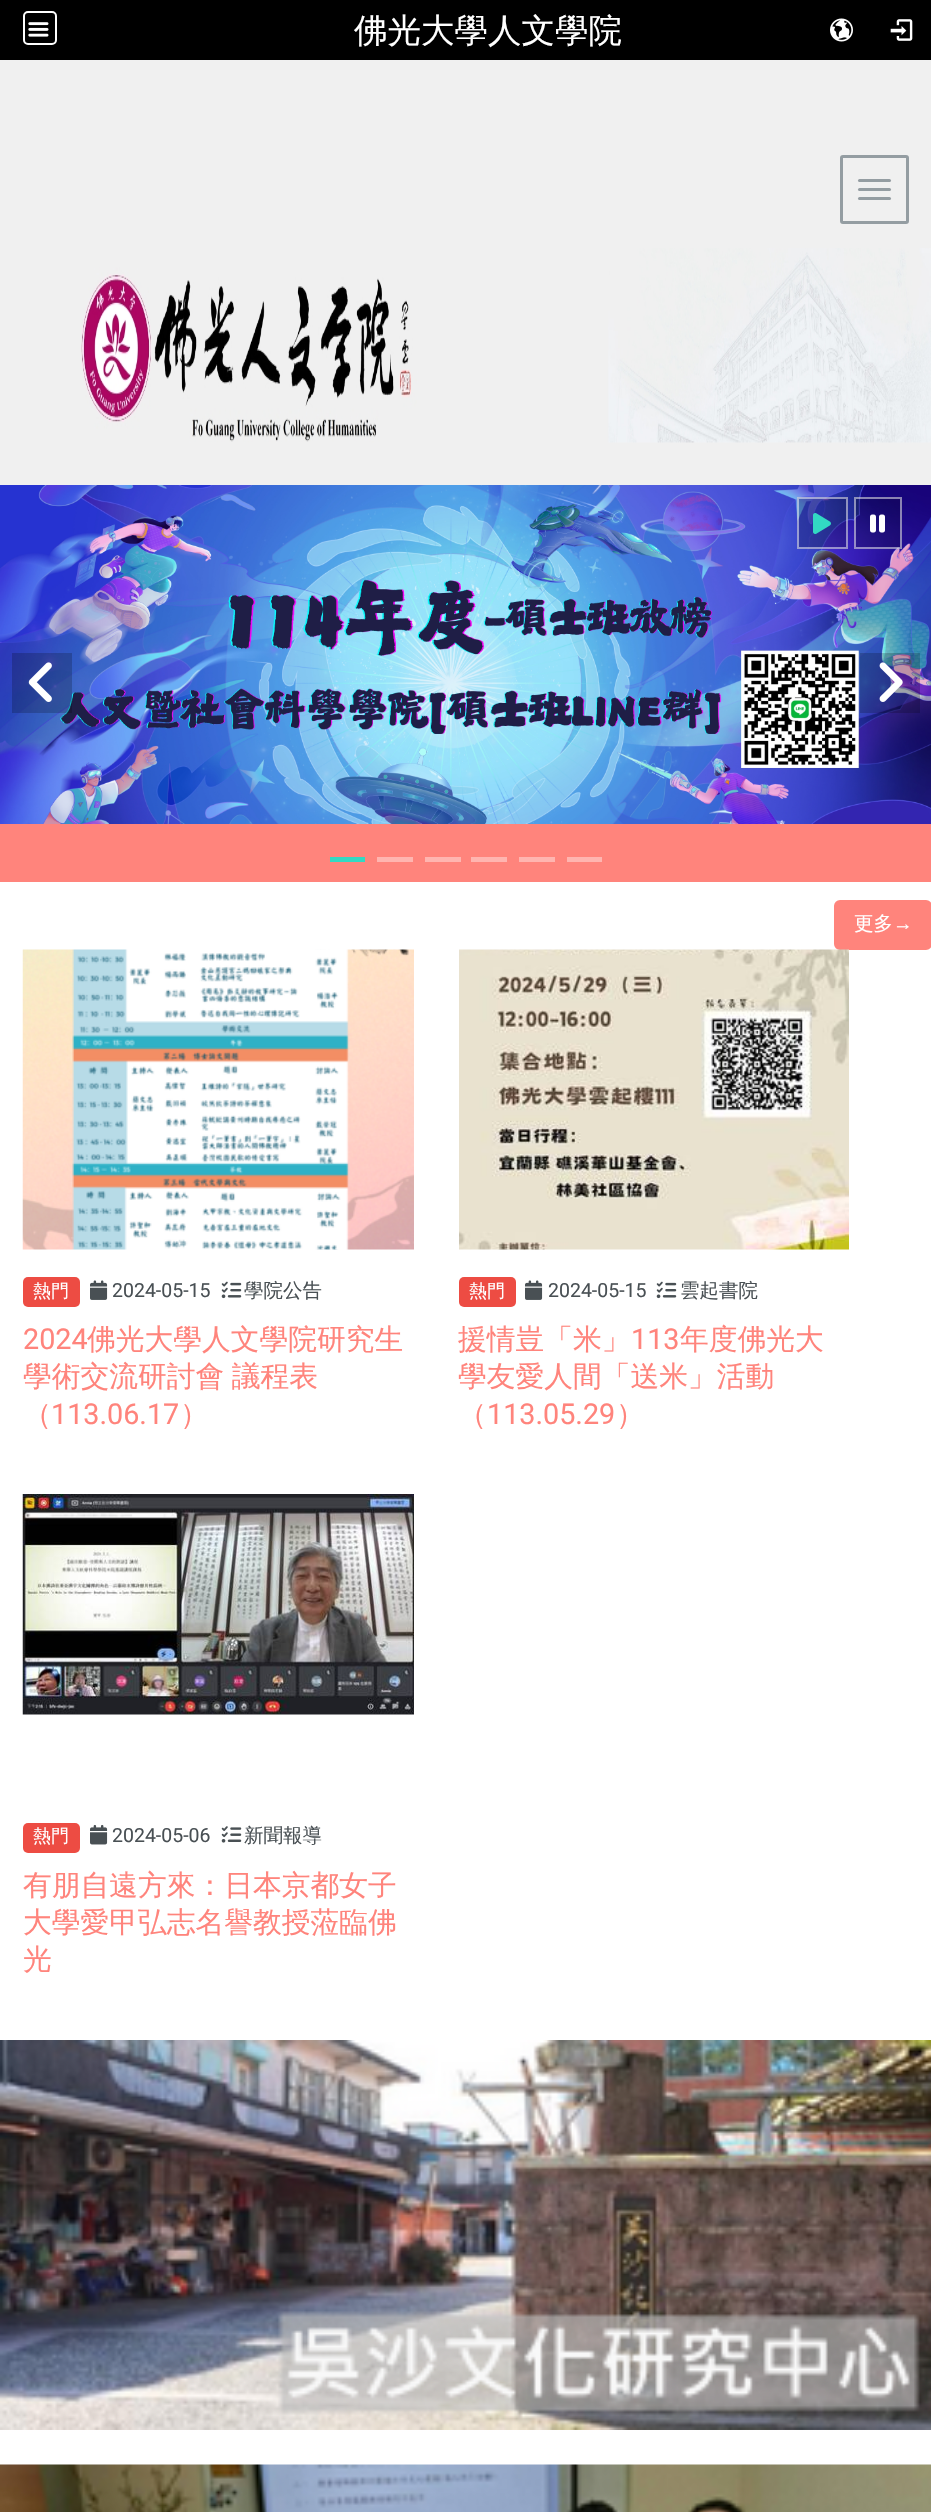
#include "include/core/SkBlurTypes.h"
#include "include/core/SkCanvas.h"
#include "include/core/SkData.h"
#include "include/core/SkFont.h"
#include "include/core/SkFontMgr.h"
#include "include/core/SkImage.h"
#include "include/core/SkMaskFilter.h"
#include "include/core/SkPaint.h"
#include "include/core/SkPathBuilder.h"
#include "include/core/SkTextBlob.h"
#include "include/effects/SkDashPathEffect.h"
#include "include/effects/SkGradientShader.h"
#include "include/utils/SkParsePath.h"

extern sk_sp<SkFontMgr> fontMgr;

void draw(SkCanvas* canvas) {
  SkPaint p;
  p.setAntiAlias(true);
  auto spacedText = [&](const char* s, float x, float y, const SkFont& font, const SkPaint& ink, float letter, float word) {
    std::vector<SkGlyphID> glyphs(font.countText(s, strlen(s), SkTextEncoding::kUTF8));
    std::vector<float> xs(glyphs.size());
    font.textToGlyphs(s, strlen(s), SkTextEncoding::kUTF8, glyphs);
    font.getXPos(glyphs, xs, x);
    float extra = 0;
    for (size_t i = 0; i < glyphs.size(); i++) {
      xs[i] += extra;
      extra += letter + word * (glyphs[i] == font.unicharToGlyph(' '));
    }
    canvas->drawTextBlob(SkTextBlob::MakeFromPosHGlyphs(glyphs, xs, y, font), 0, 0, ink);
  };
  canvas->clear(SK_ColorWHITE);
  p.setColor(SK_ColorBLACK);
  canvas->drawRect(SkRect::MakeLTRB(0, 0, 931, 60), p);
  p.setStyle(SkPaint::kStroke_Style);
  p.setStrokeWidth(2);
  p.setColor(SK_ColorWHITE);
  canvas->drawRoundRect(SkRect::MakeLTRB(24, 12, 56, 44), 4, 4, p);
  canvas->drawImageRect(SkImages::DeferredFromEncodedData(SkData::MakeFromFileName("images/1.png")), SkRect::MakeLTRB(28, 22, 49, 37), SkSamplingOptions());
  canvas->drawImageRect(SkImages::DeferredFromEncodedData(SkData::MakeFromFileName("images/2.png")), SkRect::MakeLTRB(830, 18, 853, 42), SkSamplingOptions());
  canvas->drawImageRect(SkImages::DeferredFromEncodedData(SkData::MakeFromFileName("images/3.png")), SkRect::MakeLTRB(890, 19, 913, 41), SkSamplingOptions());
  p.setStyle(SkPaint::kFill_Style);
  p.setColor(SkColorSetRGB(240, 240, 240));
  canvas->drawRect(SkRect::MakeLTRB(0, 60, 931, 485), p);
  p.setStyle(SkPaint::kStroke_Style);
  p.setStrokeWidth(3);
  p.setColor(SkColorSetRGB(148, 157, 162));
  canvas->drawRoundRect(SkRect::MakeLTRB(841.5f, 156.5f, 907.5f, 222.5f), 1.5f, 1.5f, p);
  p.setStyle(SkPaint::kFill_Style);
  canvas->drawRoundRect(SkRect::MakeLTRB(858, 179, 891, 182), 1.5f, 1.5f, p);
  canvas->drawRoundRect(SkRect::MakeLTRB(858, 188, 891, 191), 1.5f, 1.5f, p);
  canvas->drawRoundRect(SkRect::MakeLTRB(858, 197, 891, 200), 1.5f, 1.5f, p);
  canvas->drawImageRect(SkImages::DeferredFromEncodedData(SkData::MakeFromFileName("images/4.png")), SkRect::MakeLTRB(81, 248, 931, 443), SkSamplingOptions());
  canvas->drawImageRect(SkImages::DeferredFromEncodedData(SkData::MakeFromFileName("images/5.png")), SkRect::MakeLTRB(0, 485, 931, 824), SkSamplingOptions());
  p.setColor(SkColorSetARGB(51, 0, 0, 0));
  canvas->drawRect(SkRect::MakeLTRB(797, 497, 848, 549), p);
  p.setStyle(SkPaint::kStroke_Style);
  p.setStrokeWidth(2);
  p.setColor(SkColorSetARGB(128, 255, 255, 255));
  canvas->drawRect(SkRect::MakeLTRB(798, 498, 847, 548), p);
  canvas->drawImageRect(SkImages::DeferredFromEncodedData(SkData::MakeFromFileName("images/6.png")), SkRect::MakeLTRB(813, 513, 831, 534), SkSamplingOptions());
  p.setStyle(SkPaint::kFill_Style);
  p.setColor(SkColorSetARGB(51, 0, 0, 0));
  canvas->drawRect(SkRect::MakeLTRB(854, 497, 902, 549), p);
  p.setStyle(SkPaint::kStroke_Style);
  p.setColor(SkColorSetARGB(128, 255, 255, 255));
  canvas->drawRect(SkRect::MakeLTRB(855, 498, 901, 548), p);
  canvas->drawImageRect(SkImages::DeferredFromEncodedData(SkData::MakeFromFileName("images/7.png")), SkRect::MakeLTRB(870, 514, 885, 533), SkSamplingOptions());
  p.setStyle(SkPaint::kFill_Style);
  p.setColor(SkColorSetARGB(51, 0, 0, 0));
  canvas->drawRect(SkRect::MakeLTRB(12, 653, 72, 713), p);
  canvas->drawImageRect(SkImages::DeferredFromEncodedData(SkData::MakeFromFileName("images/8.png")), SkRect::MakeLTRB(28, 662, 52, 702), SkSamplingOptions());
  canvas->drawRect(SkRect::MakeLTRB(860, 653, 920, 713), p);
  canvas->drawImageRect(SkImages::DeferredFromEncodedData(SkData::MakeFromFileName("images/9.png")), SkRect::MakeLTRB(879, 662, 903, 702), SkSamplingOptions());
  p.setColor(SkColorSetRGB(255, 132, 124));
  canvas->drawRect(SkRect::MakeLTRB(0, 824, 931, 882), p);
  p.setColor(SkColorSetRGB(50, 217, 195));
  canvas->drawRect(SkRect::MakeLTRB(330, 857, 365, 862), p);
  p.setColor(SkColorSetRGB(255, 181, 176));
  canvas->drawRect(SkRect::MakeLTRB(377, 857, 413, 862), p);
  canvas->drawRect(SkRect::MakeLTRB(425, 857, 461, 862), p);
  canvas->drawRect(SkRect::MakeLTRB(471, 857, 507, 862), p);
  canvas->drawRect(SkRect::MakeLTRB(519, 857, 555, 862), p);
  canvas->drawRect(SkRect::MakeLTRB(567, 857, 602, 862), p);
  p.setColor(SkColorSetRGB(255, 132, 124));
  canvas->drawRoundRect(SkRect::MakeLTRB(835, 901, 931, 949), 5, 5, p);
  p.setStyle(SkPaint::kStroke_Style);
  canvas->drawRoundRect(SkRect::MakeLTRB(835, 901, 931, 949), 5, 5, p);
  canvas->drawImageRect(SkImages::DeferredFromEncodedData(SkData::MakeFromFileName("images/10.png")), SkRect::MakeLTRB(22, 949, 414, 1250), SkSamplingOptions());
  p.setStyle(SkPaint::kFill_Style);
  p.setColor(SkColorSetRGB(237, 76, 67));
  canvas->drawRoundRect(SkRect::MakeLTRB(23, 1277, 80, 1307), 5, 5, p);
  canvas->drawImageRect(SkImages::DeferredFromEncodedData(SkData::MakeFromFileName("images/11.png")), SkRect::MakeLTRB(90, 1280, 108, 1300), SkSamplingOptions());
  canvas->drawImageRect(SkImages::DeferredFromEncodedData(SkData::MakeFromFileName("images/12.png")), SkRect::MakeLTRB(221, 1281, 242, 1299), SkSamplingOptions());
  canvas->drawImageRect(SkImages::DeferredFromEncodedData(SkData::MakeFromFileName("images/13.png")), SkRect::MakeLTRB(459, 949, 849, 1250), SkSamplingOptions());
  canvas->drawRoundRect(SkRect::MakeLTRB(459, 1277, 516, 1307), 5, 5, p);
  canvas->drawImageRect(SkImages::DeferredFromEncodedData(SkData::MakeFromFileName("images/11.png")), SkRect::MakeLTRB(525, 1280, 543, 1300), SkSamplingOptions());
  canvas->drawImageRect(SkImages::DeferredFromEncodedData(SkData::MakeFromFileName("images/12.png")), SkRect::MakeLTRB(656, 1281, 677, 1299), SkSamplingOptions());
  canvas->drawImageRect(SkImages::DeferredFromEncodedData(SkData::MakeFromFileName("images/14.png")), SkRect::MakeLTRB(22, 1494, 414, 1715), SkSamplingOptions());
  canvas->drawRoundRect(SkRect::MakeLTRB(23, 1823, 80, 1853), 5, 5, p);
  canvas->drawImageRect(SkImages::DeferredFromEncodedData(SkData::MakeFromFileName("images/15.png")), SkRect::MakeLTRB(90, 1824, 108, 1845), SkSamplingOptions());
  canvas->drawImageRect(SkImages::DeferredFromEncodedData(SkData::MakeFromFileName("images/16.png")), SkRect::MakeLTRB(221, 1826, 242, 1843), SkSamplingOptions());
  canvas->drawImageRect(SkImages::DeferredFromEncodedData(SkData::MakeFromFileName("images/17.png")), SkRect::MakeLTRB(0, 2040, 931, 2430), SkSamplingOptions());
  canvas->drawImageRect(SkImages::DeferredFromEncodedData(SkData::MakeFromFileName("images/18.png")), SkRect::MakeLTRB(0, 2464, 931, 2512), SkSamplingOptions());
  SkFont font1(fontMgr->matchFamilyStyle("WenQuanYi Zen Hei", SkFontStyle(500, SkFontStyle::kNormal_Width, SkFontStyle::kUpright_Slant)), 33.5f);
  font1.setSubpixel(true);
  p.setColor(SK_ColorWHITE);
  canvas->drawString("佛光大學人文學院", 354, 42, font1, p);
  SkFont font2(fontMgr->matchFamilyStyle("WenQuanYi Zen Hei", SkFontStyle(500, SkFontStyle::kNormal_Width, SkFontStyle::kUpright_Slant)), 19.5f);
  font2.setSubpixel(true);
  canvas->drawString("更多", 854, 930, font2, p);
  SkFont font3(fontMgr->matchFamilyStyle("Liberation Sans", SkFontStyle::Normal()), 19.5f);
  font3.setSubpixel(true);
  canvas->drawString("→", 893, 930, font3, p);
  SkFont font4(fontMgr->matchFamilyStyle("WenQuanYi Zen Hei", SkFontStyle(500, SkFontStyle::kNormal_Width, SkFontStyle::kUpright_Slant)), 18);
  font4.setSubpixel(true);
  canvas->drawString("熱門", 33, 1297, font4, p);
  SkFont font5(fontMgr->matchFamilyStyle("Roboto", SkFontStyle::Normal()), 19.5f);
  font5.setSubpixel(true);
  p.setColor(SkColorSetRGB(73, 80, 84));
  canvas->drawString("2024-05-15", 112, 1297, font5, p);
  canvas->drawString("學院公告", 244, 1297, font2, p);
  SkFont font6(fontMgr->matchFamilyStyle("Roboto", SkFontStyle::Normal()), 28.75f);
  font6.setSubpixel(true);
  p.setColor(SkColorSetRGB(255, 132, 124));
  canvas->drawString("2024", 23, 1349, font6, p);
  SkFont font7(fontMgr->matchFamilyStyle("WenQuanYi Zen Hei", SkFontStyle(500, SkFontStyle::kNormal_Width, SkFontStyle::kUpright_Slant)), 28.75f);
  font7.setSubpixel(true);
  canvas->drawString("佛光大學人文學院研究生", 87, 1349, font7, p);
  spacedText("學術交流研討會 議程表", 23, 1386, font7, p, 0, -1);
  canvas->drawString("（", 23, 1424, font7, p);
  canvas->drawString("113.06.17", 51, 1424, font6, p);
  canvas->drawString("）", 180, 1424, font7, p);
  p.setColor(SK_ColorWHITE);
  canvas->drawString("熱門", 469, 1297, font4, p);
  p.setColor(SkColorSetRGB(73, 80, 84));
  canvas->drawString("2024-05-15", 548, 1297, font5, p);
  canvas->drawString("雲起書院", 680, 1297, font2, p);
  p.setColor(SkColorSetRGB(255, 132, 124));
  canvas->drawString("援情豈「米」", 458, 1349, font7, p);
  canvas->drawString("113", 631, 1349, font6, p);
  canvas->drawString("年度佛光大", 680, 1349, font7, p);
  canvas->drawString("學友愛人間「送米」活動", 458, 1386, font7, p);
  canvas->drawString("（", 458, 1424, font7, p);
  canvas->drawString("113.05.29", 487, 1424, font6, p);
  canvas->drawString("）", 616, 1424, font7, p);
  p.setColor(SK_ColorWHITE);
  canvas->drawString("熱門", 33, 1842, font4, p);
  p.setColor(SkColorSetRGB(73, 80, 84));
  canvas->drawString("2024-05-06", 112, 1842, font5, p);
  canvas->drawString("新聞報導", 244, 1842, font2, p);
  p.setColor(SkColorSetRGB(255, 132, 124));
  canvas->drawString("有朋自遠方來：日本京都女子", 23, 1895, font7, p);
  canvas->drawString("大學愛甲弘志名譽教授蒞臨佛", 23, 1932, font7, p);
  canvas->drawString("光", 23, 1969, font7, p);
}
